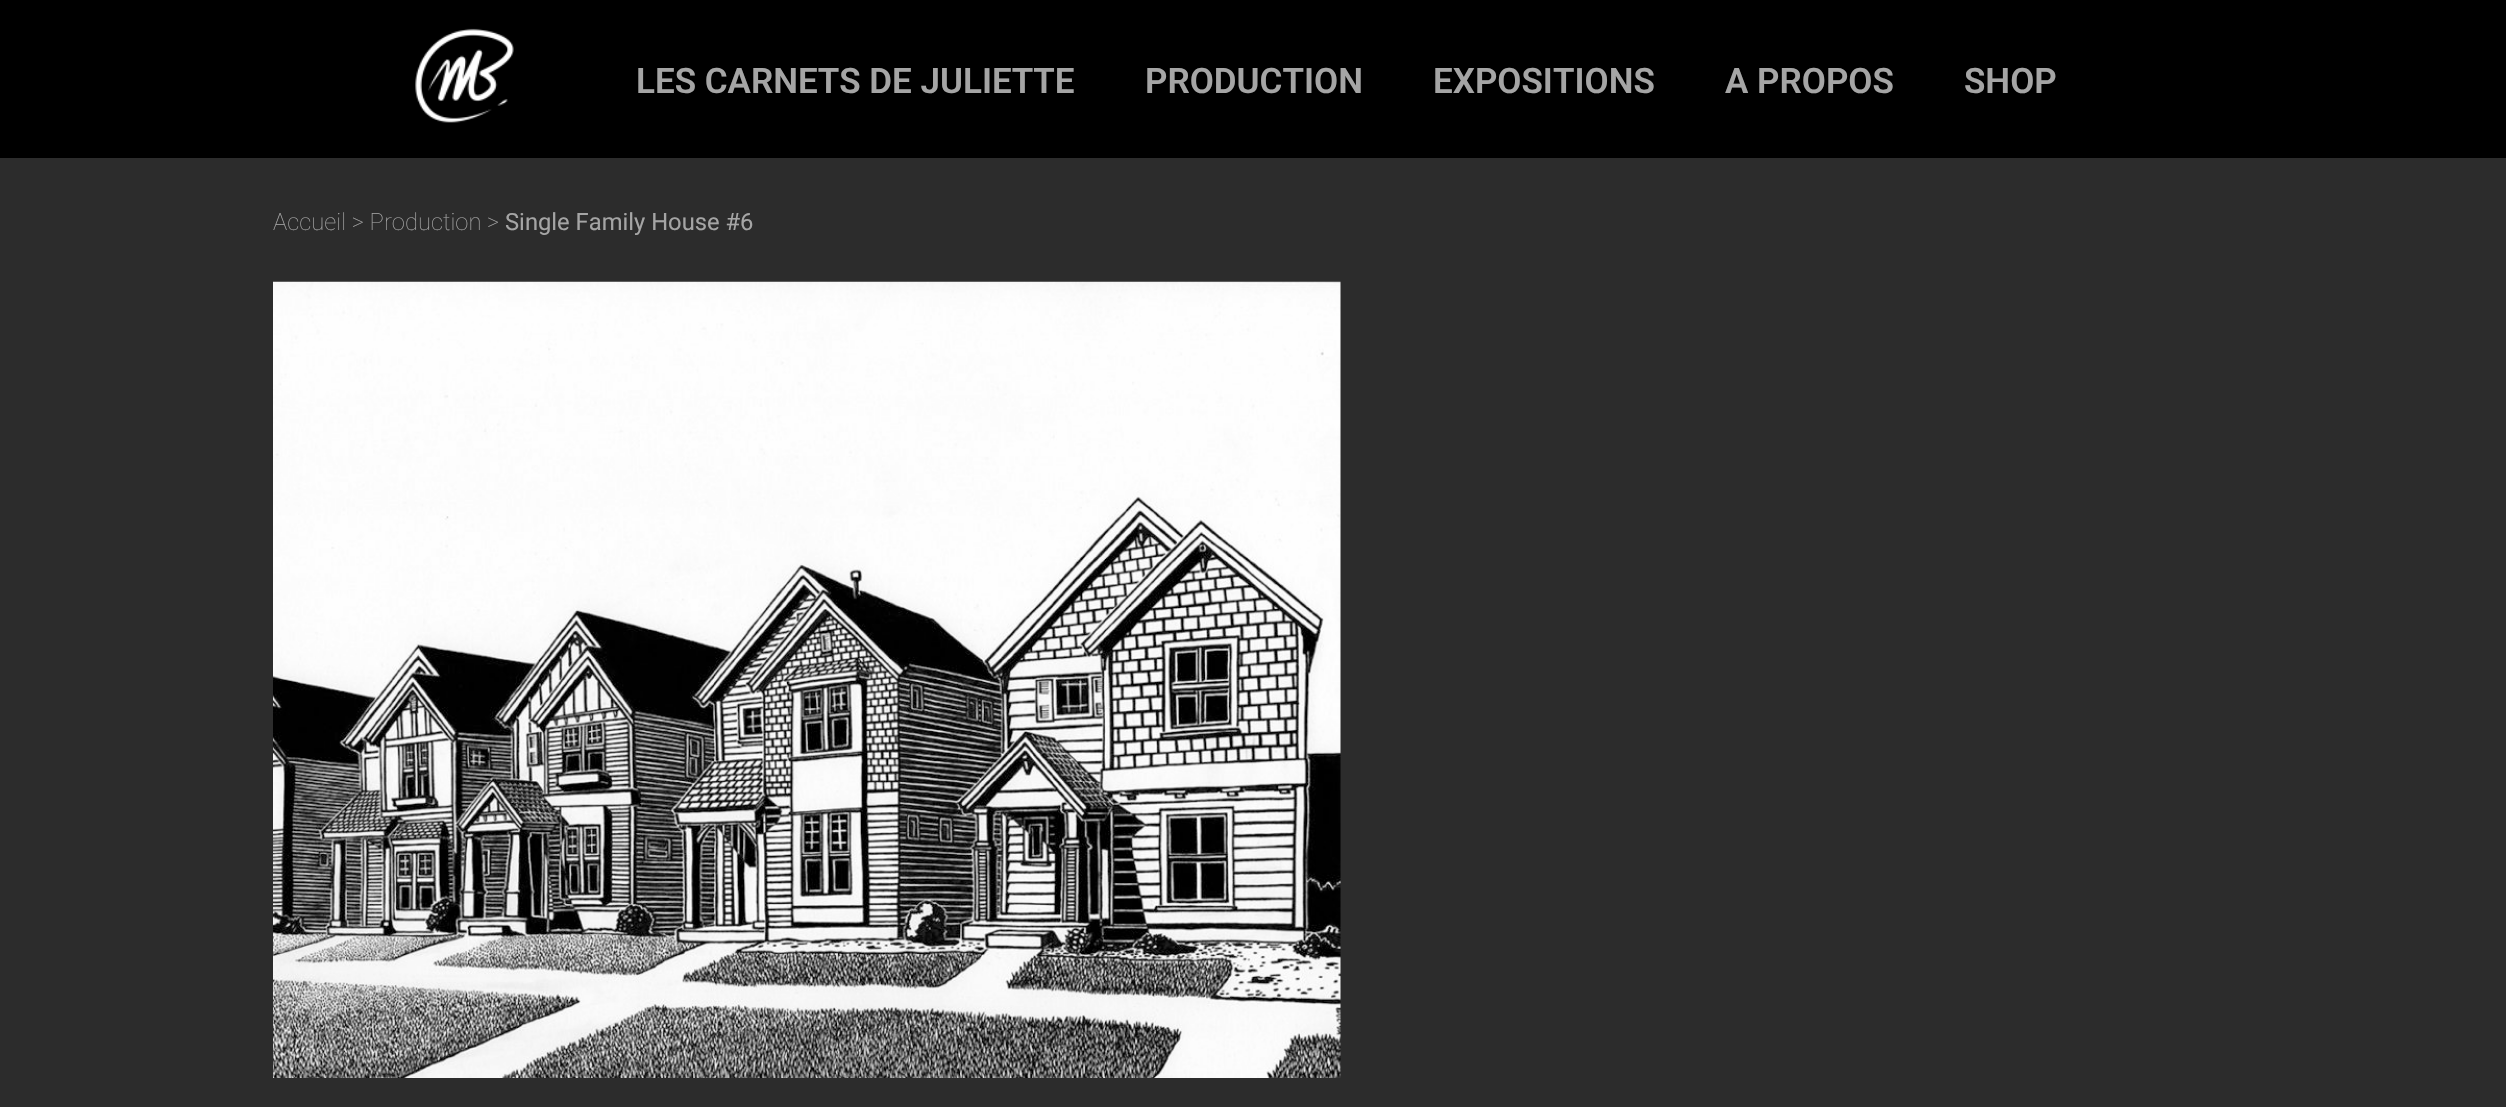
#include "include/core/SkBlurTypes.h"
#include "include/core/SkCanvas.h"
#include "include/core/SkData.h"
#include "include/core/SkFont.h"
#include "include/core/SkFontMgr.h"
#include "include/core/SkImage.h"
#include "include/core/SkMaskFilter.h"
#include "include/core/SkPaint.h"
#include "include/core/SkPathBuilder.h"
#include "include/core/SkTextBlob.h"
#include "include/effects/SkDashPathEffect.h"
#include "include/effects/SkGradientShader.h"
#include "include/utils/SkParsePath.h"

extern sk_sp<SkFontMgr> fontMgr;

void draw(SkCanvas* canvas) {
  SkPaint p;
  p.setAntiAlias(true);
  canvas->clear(SkColorSetRGB(44, 44, 44));
  p.setColor(SK_ColorBLACK);
  canvas->drawRect(SkRect::MakeLTRB(0, 0, 2506, 158), p);
  canvas->drawImageRect(SkImages::DeferredFromEncodedData(SkData::MakeFromFileName("images/1.png")), SkRect::MakeLTRB(415, 28, 514, 123), SkSamplingOptions());
  canvas->drawImageRect(SkImages::DeferredFromEncodedData(SkData::MakeFromFileName("images/2.png")), SkRect::MakeLTRB(273, 281, 1341, 1078), SkSamplingOptions());
  SkFont font1(fontMgr->matchFamilyStyle("Roboto", SkFontStyle(600, SkFontStyle::kNormal_Width, SkFontStyle::kUpright_Slant)), 35);
  font1.setSubpixel(true);
  p.setColor(SkColorSetRGB(165, 165, 165));
  canvas->drawString("LES CARNETS DE JULIETTE", 636, 93, font1, p);
  canvas->drawString("PRODUCTION", 1145, 93, font1, p);
  canvas->drawString("EXPOSITIONS", 1433, 93, font1, p);
  canvas->drawString("A PROPOS", 1725, 93, font1, p);
  canvas->drawString("SHOP", 1964, 93, font1, p);
  SkFont font2(fontMgr->matchFamilyStyle("Roboto", SkFontStyle(100, SkFontStyle::kNormal_Width, SkFontStyle::kUpright_Slant)), 23.75f);
  font2.setSubpixel(true);
  canvas->drawString("Accueil > Production >", 273, 230, font2, p);
  SkFont font3(fontMgr->matchFamilyStyle("Roboto", SkFontStyle::Normal()), 23.75f);
  font3.setSubpixel(true);
  canvas->drawString("Single Family House #6", 505, 230, font3, p);
}
